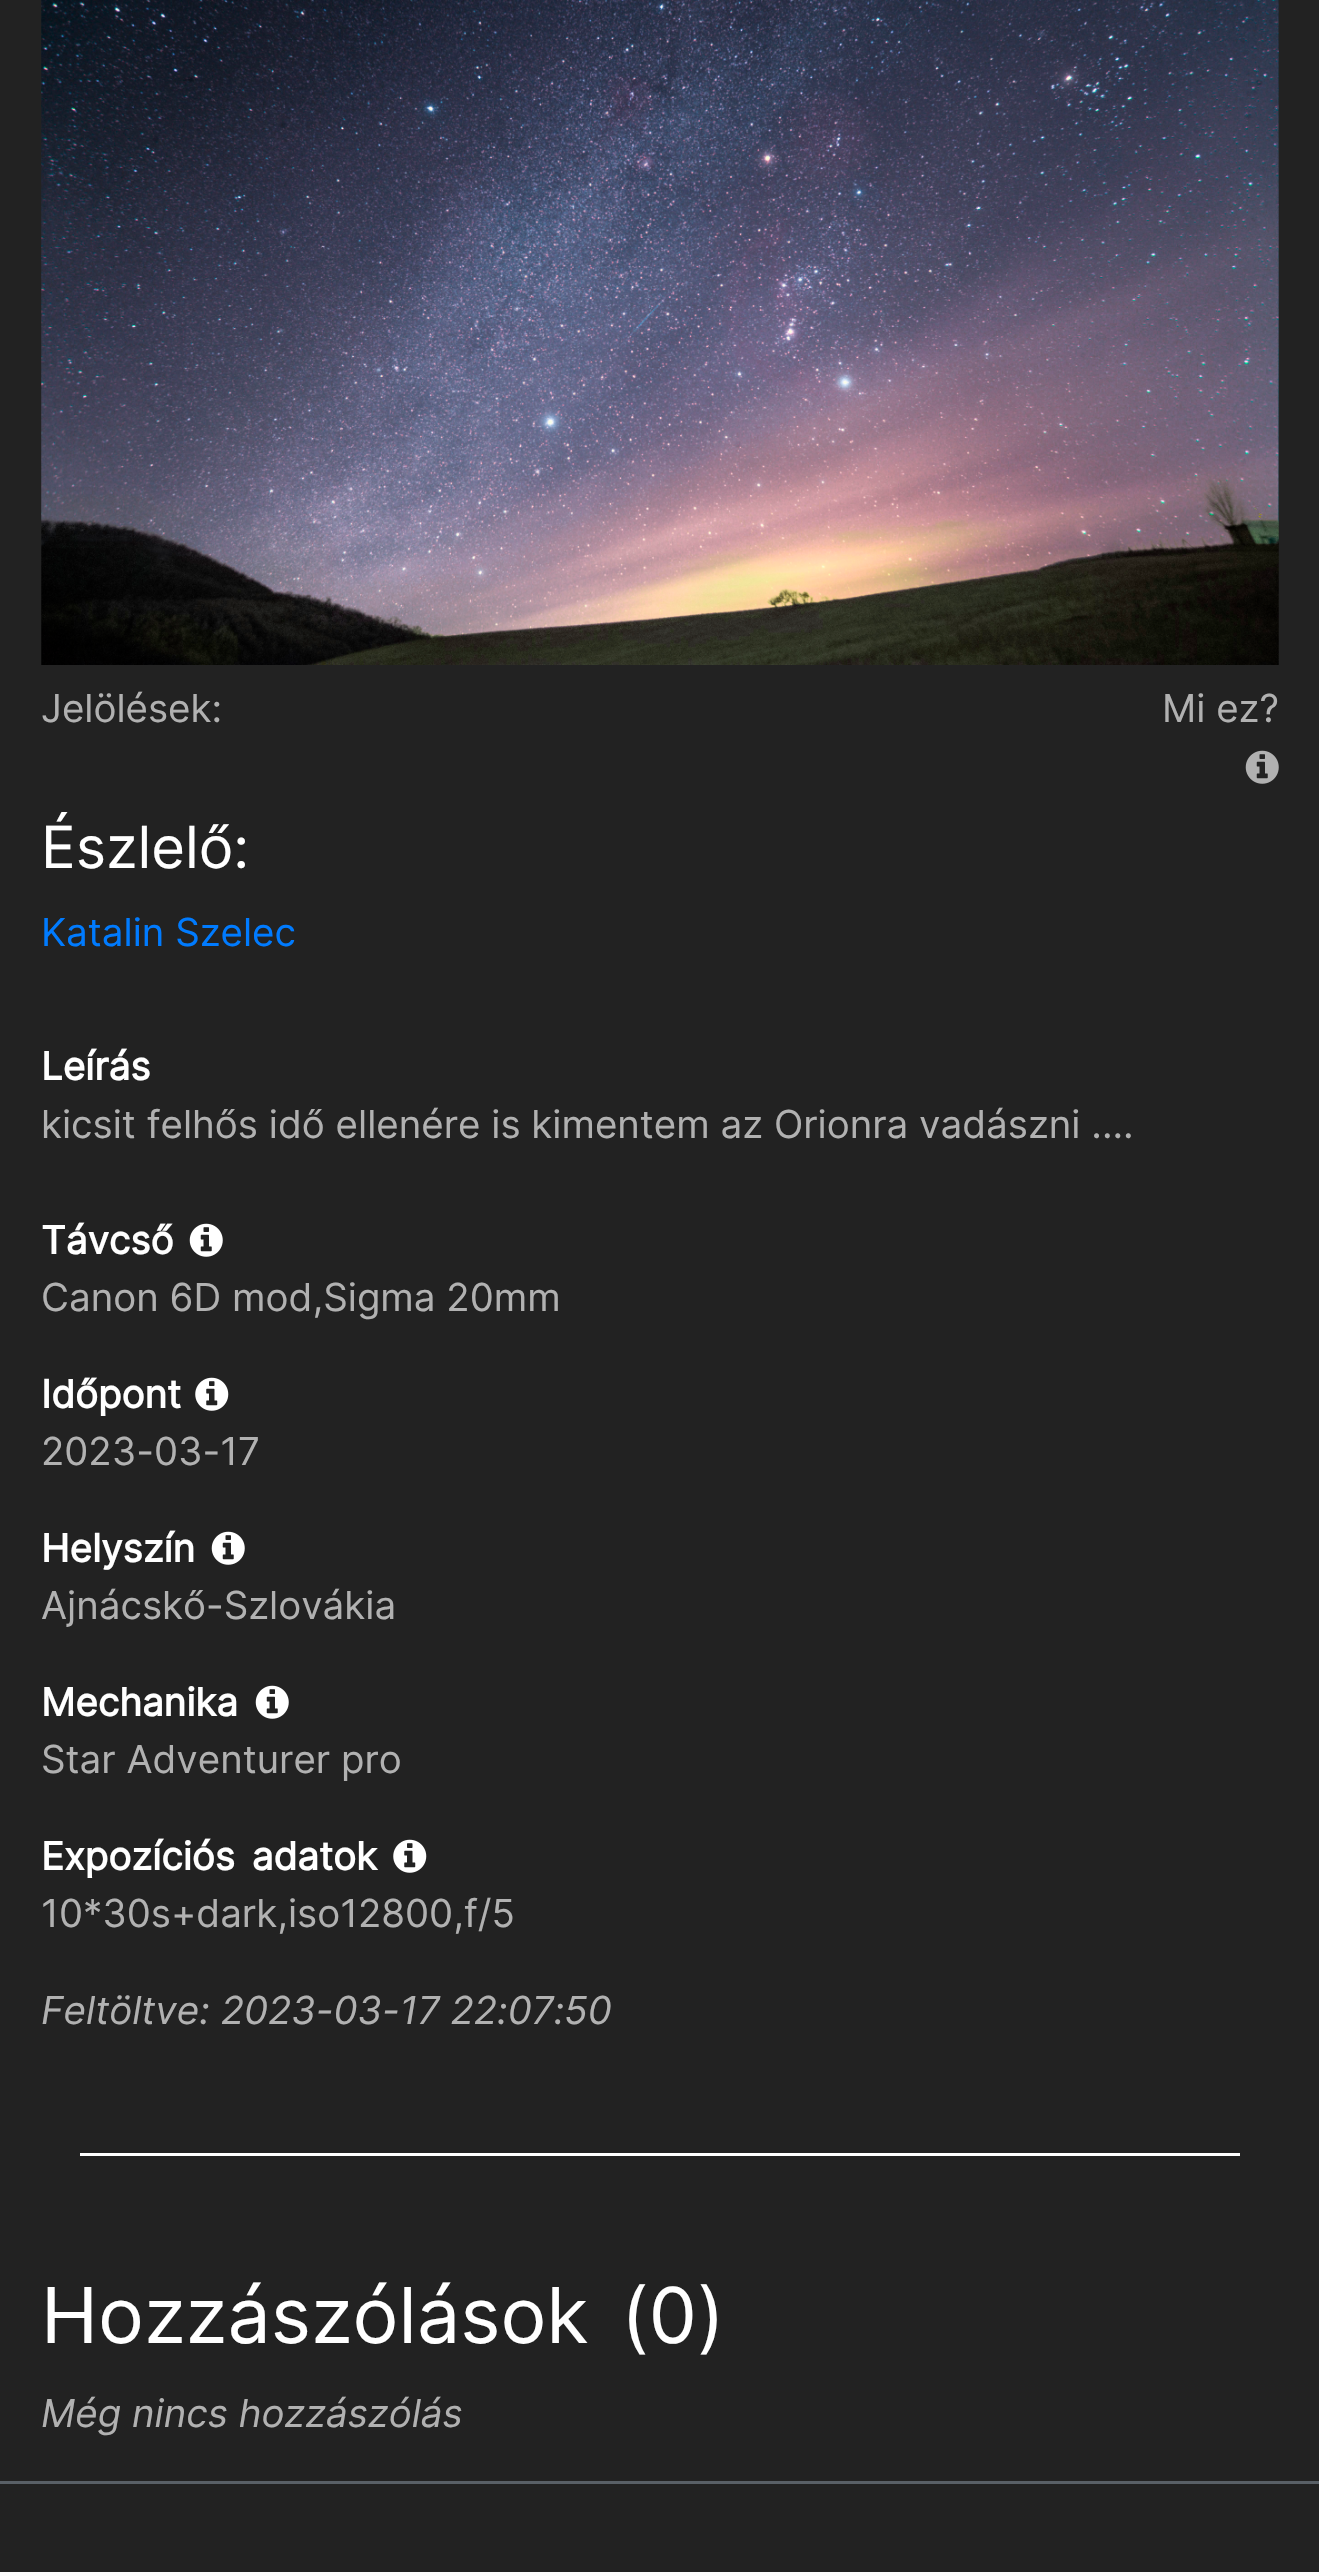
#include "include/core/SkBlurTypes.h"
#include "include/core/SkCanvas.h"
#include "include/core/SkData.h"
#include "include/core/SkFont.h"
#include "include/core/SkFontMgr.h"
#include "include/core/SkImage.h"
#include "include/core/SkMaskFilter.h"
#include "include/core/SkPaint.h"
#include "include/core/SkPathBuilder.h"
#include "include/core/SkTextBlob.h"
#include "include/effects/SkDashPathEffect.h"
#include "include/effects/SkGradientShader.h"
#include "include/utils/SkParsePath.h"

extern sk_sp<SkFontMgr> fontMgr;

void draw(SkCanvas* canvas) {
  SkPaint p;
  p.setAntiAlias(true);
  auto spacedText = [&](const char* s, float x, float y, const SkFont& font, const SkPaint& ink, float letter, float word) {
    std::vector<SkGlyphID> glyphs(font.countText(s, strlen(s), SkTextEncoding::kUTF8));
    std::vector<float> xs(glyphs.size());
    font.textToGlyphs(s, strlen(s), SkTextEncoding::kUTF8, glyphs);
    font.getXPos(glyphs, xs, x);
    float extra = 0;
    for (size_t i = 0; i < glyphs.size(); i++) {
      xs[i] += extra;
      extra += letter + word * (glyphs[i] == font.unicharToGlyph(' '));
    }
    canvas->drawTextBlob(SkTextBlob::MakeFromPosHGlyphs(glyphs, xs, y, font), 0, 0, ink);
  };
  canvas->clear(SkColorSetRGB(34, 34, 34));
  canvas->drawImageRect(SkImages::DeferredFromEncodedData(SkData::MakeFromFileName("images/1.png")), SkRect::MakeLTRB(41, 0, 1279, 665), SkSamplingOptions());
  canvas->drawImageRect(SkImages::DeferredFromEncodedData(SkData::MakeFromFileName("images/2.png")), SkRect::MakeLTRB(1245, 750, 1279, 784), SkSamplingOptions());
  canvas->drawImageRect(SkImages::DeferredFromEncodedData(SkData::MakeFromFileName("images/3.png")), SkRect::MakeLTRB(189, 1223, 223, 1257), SkSamplingOptions());
  canvas->drawImageRect(SkImages::DeferredFromEncodedData(SkData::MakeFromFileName("images/4.png")), SkRect::MakeLTRB(195, 1377, 229, 1411), SkSamplingOptions());
  canvas->drawImageRect(SkImages::DeferredFromEncodedData(SkData::MakeFromFileName("images/3.png")), SkRect::MakeLTRB(211, 1531, 245, 1565), SkSamplingOptions());
  canvas->drawImageRect(SkImages::DeferredFromEncodedData(SkData::MakeFromFileName("images/3.png")), SkRect::MakeLTRB(255, 1685, 289, 1719), SkSamplingOptions());
  canvas->drawImageRect(SkImages::DeferredFromEncodedData(SkData::MakeFromFileName("images/4.png")), SkRect::MakeLTRB(393, 1839, 427, 1873), SkSamplingOptions());
  p.setColor(SK_ColorWHITE);
  canvas->drawRect(SkRect::MakeLTRB(80, 2153, 1240, 2156), p);
  p.setColor(SkColorSetRGB(89, 96, 103));
  canvas->drawRect(SkRect::MakeLTRB(0, 2481, 1319, 2484), p);
  SkFont font1(fontMgr->matchFamilyStyle("Inter", SkFontStyle::Normal()), 38.5f);
  font1.setSubpixel(true);
  p.setColor(SkColorSetRGB(177, 177, 177));
  canvas->drawString("Jelölések:", 41, 722, font1, p);
  canvas->drawString("Mi ez?", 1162, 722, font1, p);
  SkFont font2(fontMgr->matchFamilyStyle("Inter", SkFontStyle::Normal()), 58);
  font2.setSubpixel(true);
  p.setColor(SK_ColorWHITE);
  canvas->drawString("Észlelő:", 41, 868, font2, p);
  p.setColor(SkColorSetRGB(0, 123, 255));
  canvas->drawString("Katalin Szelec", 41, 946, font1, p);
  SkFont font3(fontMgr->matchFamilyStyle("Inter", SkFontStyle::Bold()), 38.5f);
  font3.setSubpixel(true);
  p.setColor(SK_ColorWHITE);
  canvas->drawString("Leírás", 41, 1080, font3, p);
  p.setColor(SkColorSetRGB(177, 177, 177));
  canvas->drawString("kicsit felhős idő ellenére is kimentem az Orionra vadászni ....", 41, 1138, font1, p);
  p.setColor(SK_ColorWHITE);
  canvas->drawString("Távcső", 41, 1254, font3, p);
  p.setColor(SkColorSetRGB(177, 177, 177));
  canvas->drawString("Canon 6D mod,Sigma 20mm", 41, 1311, font1, p);
  p.setColor(SK_ColorWHITE);
  canvas->drawString("Időpont", 41, 1408, font3, p);
  p.setColor(SkColorSetRGB(177, 177, 177));
  canvas->drawString("2023-03-17", 41, 1465, font1, p);
  p.setColor(SK_ColorWHITE);
  canvas->drawString("Helyszín", 41, 1562, font3, p);
  p.setColor(SkColorSetRGB(177, 177, 177));
  canvas->drawString("Ajnácskő-Szlovákia", 41, 1619, font1, p);
  p.setColor(SK_ColorWHITE);
  canvas->drawString("Mechanika", 41, 1716, font3, p);
  p.setColor(SkColorSetRGB(177, 177, 177));
  canvas->drawString("Star Adventurer pro", 41, 1773, font1, p);
  p.setColor(SK_ColorWHITE);
  spacedText("Expozíciós adatok", 41, 1870, font3, p, 0, 6);
  p.setColor(SkColorSetRGB(177, 177, 177));
  canvas->drawString("10*30s+dark,iso12800,f/5", 41, 1927, font1, p);
  SkFont font4(fontMgr->matchFamilyStyle("Inter", SkFontStyle::Italic()), 38.5f);
  font4.setSubpixel(true);
  canvas->drawString("Feltöltve: 2023-03-17 22:07:50", 41, 2024, font4, p);
  SkFont font5(fontMgr->matchFamilyStyle("Inter", SkFontStyle::Normal()), 77);
  font5.setSubpixel(true);
  p.setColor(SK_ColorWHITE);
  spacedText("Hozzászólások (0)", 41, 2343, font5, p, 0, 11);
  p.setColor(SkColorSetRGB(177, 177, 177));
  canvas->drawString("Még nincs hozzászólás", 41, 2427, font4, p);
}
